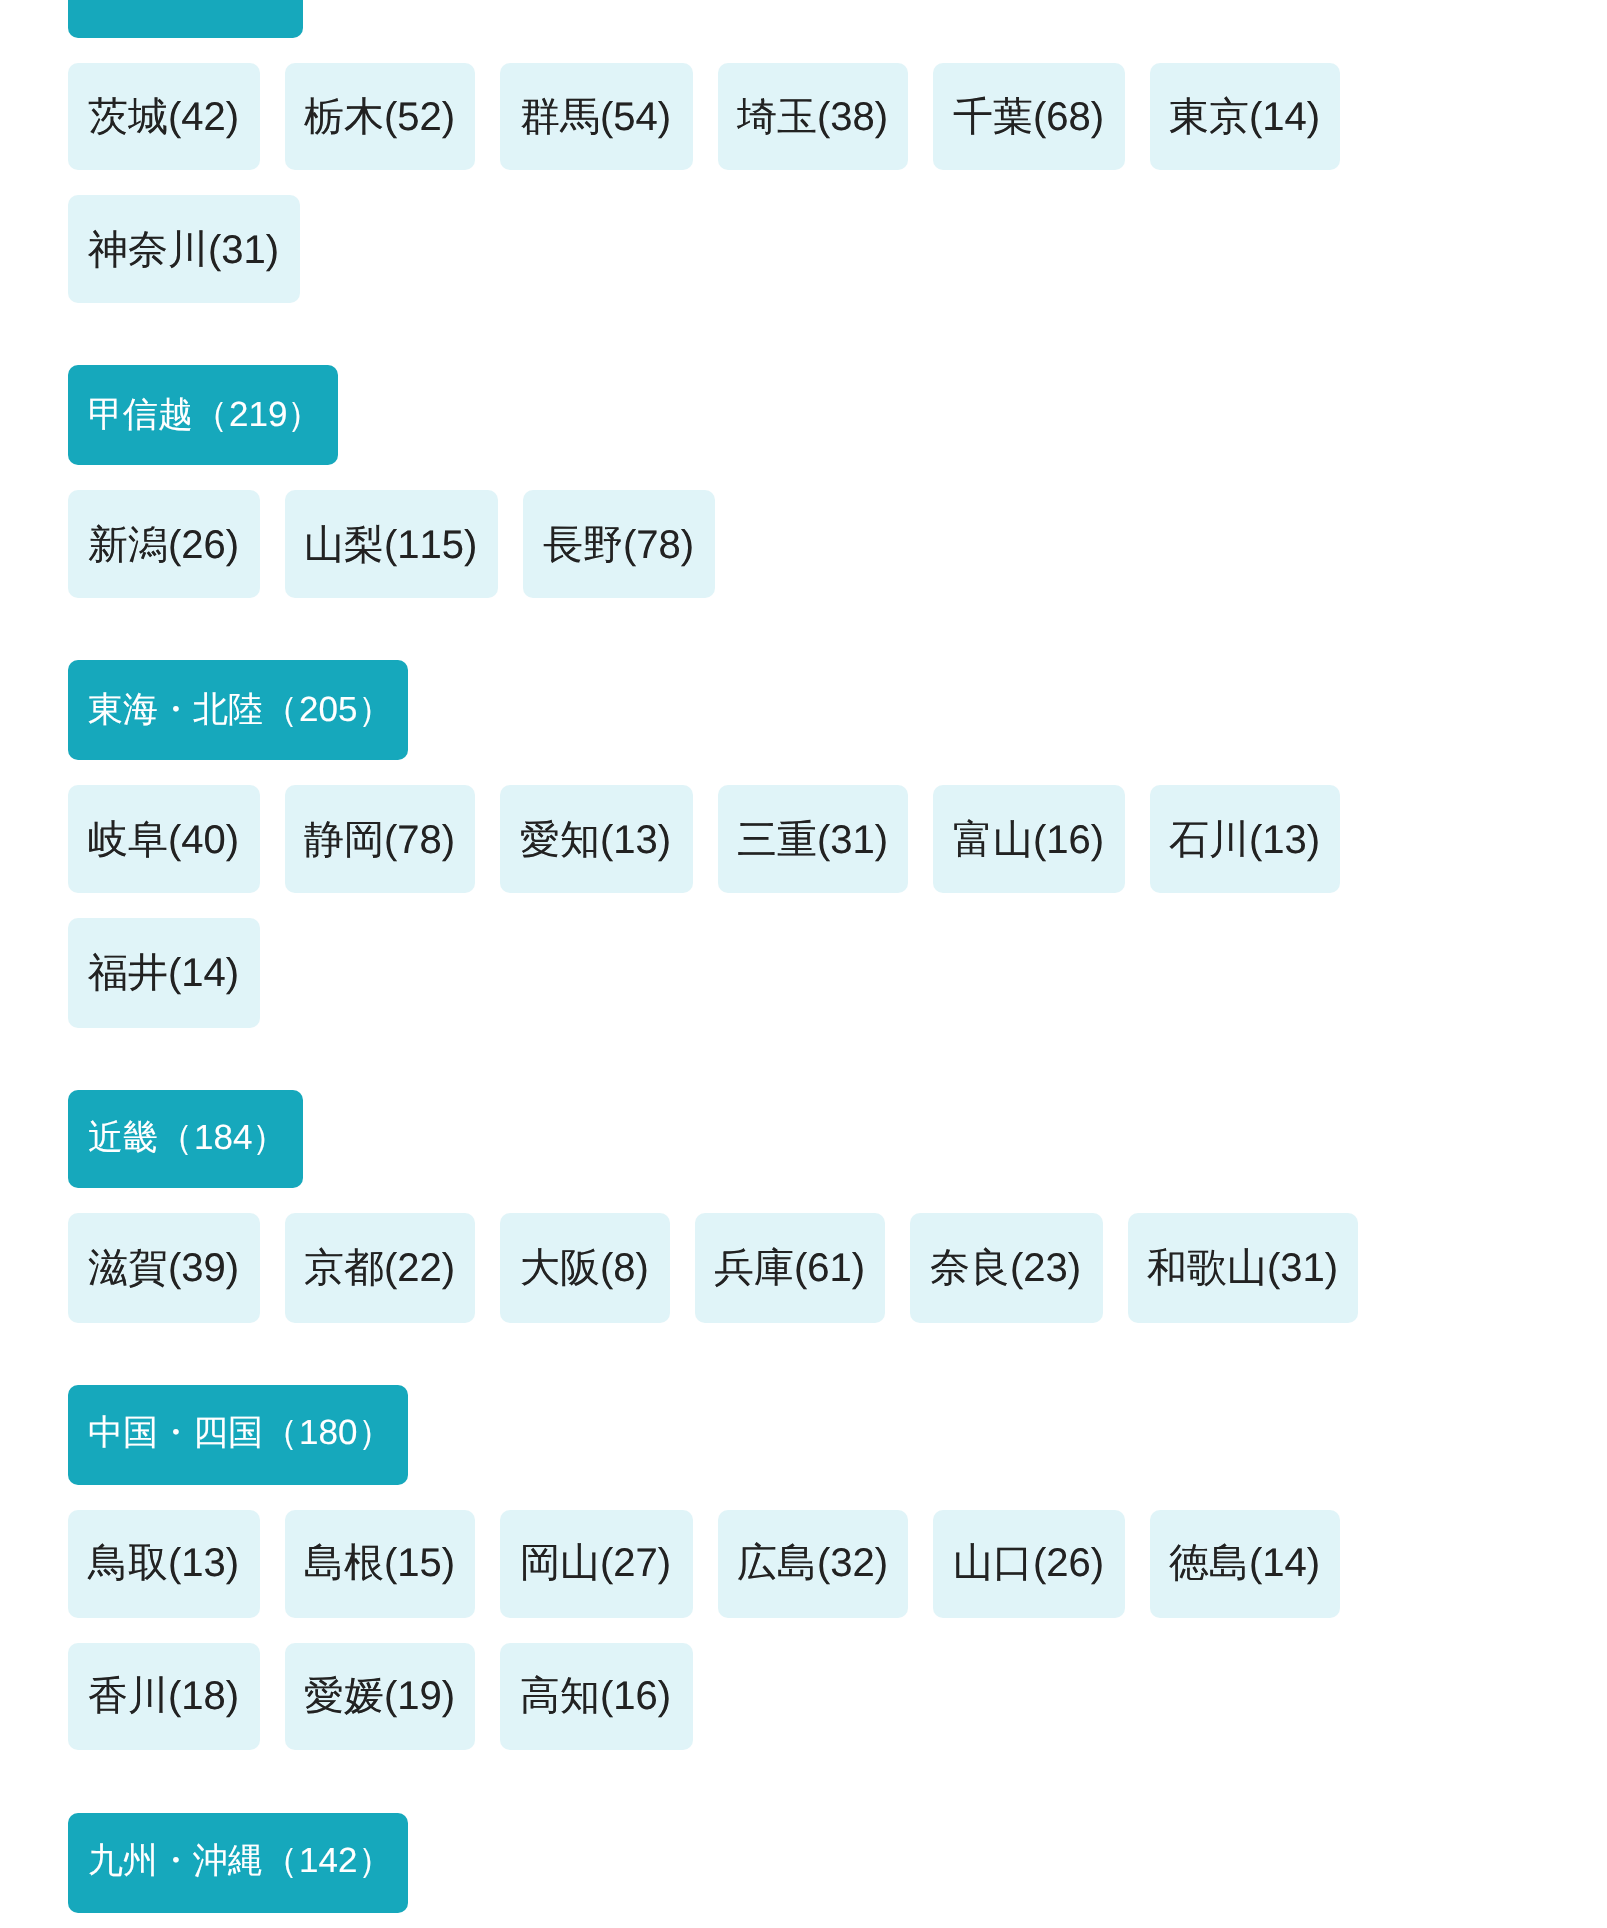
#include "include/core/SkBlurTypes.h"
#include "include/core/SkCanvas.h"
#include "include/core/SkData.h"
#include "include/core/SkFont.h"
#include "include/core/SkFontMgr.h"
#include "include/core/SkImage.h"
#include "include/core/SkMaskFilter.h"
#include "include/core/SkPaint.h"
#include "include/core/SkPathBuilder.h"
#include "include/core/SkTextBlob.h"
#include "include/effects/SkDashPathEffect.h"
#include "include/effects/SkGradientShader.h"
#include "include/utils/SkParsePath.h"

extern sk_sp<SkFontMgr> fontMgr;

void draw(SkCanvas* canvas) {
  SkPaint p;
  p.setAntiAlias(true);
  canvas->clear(SK_ColorWHITE);
  p.setColor(SkColorSetRGB(22, 168, 188));
  canvas->drawRoundRect(SkRect::MakeLTRB(68, -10, 303, 38), 10, 10, p);
  p.setColor(SkColorSetRGB(224, 244, 248));
  canvas->drawRoundRect(SkRect::MakeLTRB(68, 63, 260, 170), 10, 10, p);
  canvas->drawRoundRect(SkRect::MakeLTRB(285, 63, 475, 170), 10, 10, p);
  canvas->drawRoundRect(SkRect::MakeLTRB(500, 63, 693, 170), 10, 10, p);
  canvas->drawRoundRect(SkRect::MakeLTRB(718, 63, 908, 170), 10, 10, p);
  canvas->drawRoundRect(SkRect::MakeLTRB(933, 63, 1125, 170), 10, 10, p);
  canvas->drawRoundRect(SkRect::MakeLTRB(1150, 63, 1340, 170), 10, 10, p);
  canvas->drawRoundRect(SkRect::MakeLTRB(68, 195, 300, 303), 10, 10, p);
  p.setColor(SkColorSetRGB(22, 168, 188));
  canvas->drawRoundRect(SkRect::MakeLTRB(68, 365, 338, 465), 10, 10, p);
  p.setColor(SkColorSetRGB(224, 244, 248));
  canvas->drawRoundRect(SkRect::MakeLTRB(68, 490, 260, 598), 10, 10, p);
  canvas->drawRoundRect(SkRect::MakeLTRB(285, 490, 498, 598), 10, 10, p);
  canvas->drawRoundRect(SkRect::MakeLTRB(523, 490, 715, 598), 10, 10, p);
  p.setColor(SkColorSetRGB(22, 168, 188));
  canvas->drawRoundRect(SkRect::MakeLTRB(68, 660, 408, 760), 10, 10, p);
  p.setColor(SkColorSetRGB(224, 244, 248));
  canvas->drawRoundRect(SkRect::MakeLTRB(68, 785, 260, 893), 10, 10, p);
  canvas->drawRoundRect(SkRect::MakeLTRB(285, 785, 475, 893), 10, 10, p);
  canvas->drawRoundRect(SkRect::MakeLTRB(500, 785, 693, 893), 10, 10, p);
  canvas->drawRoundRect(SkRect::MakeLTRB(718, 785, 908, 893), 10, 10, p);
  canvas->drawRoundRect(SkRect::MakeLTRB(933, 785, 1125, 893), 10, 10, p);
  canvas->drawRoundRect(SkRect::MakeLTRB(1150, 785, 1340, 893), 10, 10, p);
  canvas->drawRoundRect(SkRect::MakeLTRB(68, 918, 260, 1028), 10, 10, p);
  p.setColor(SkColorSetRGB(22, 168, 188));
  canvas->drawRoundRect(SkRect::MakeLTRB(68, 1090, 303, 1188), 10, 10, p);
  p.setColor(SkColorSetRGB(224, 244, 248));
  canvas->drawRoundRect(SkRect::MakeLTRB(68, 1213, 260, 1323), 10, 10, p);
  canvas->drawRoundRect(SkRect::MakeLTRB(285, 1213, 475, 1323), 10, 10, p);
  canvas->drawRoundRect(SkRect::MakeLTRB(500, 1213, 670, 1323), 10, 10, p);
  canvas->drawRoundRect(SkRect::MakeLTRB(695, 1213, 885, 1323), 10, 10, p);
  canvas->drawRoundRect(SkRect::MakeLTRB(910, 1213, 1103, 1323), 10, 10, p);
  canvas->drawRoundRect(SkRect::MakeLTRB(1128, 1213, 1358, 1323), 10, 10, p);
  p.setColor(SkColorSetRGB(22, 168, 188));
  canvas->drawRoundRect(SkRect::MakeLTRB(68, 1385, 408, 1485), 10, 10, p);
  p.setColor(SkColorSetRGB(224, 244, 248));
  canvas->drawRoundRect(SkRect::MakeLTRB(68, 1510, 260, 1618), 10, 10, p);
  canvas->drawRoundRect(SkRect::MakeLTRB(285, 1510, 475, 1618), 10, 10, p);
  canvas->drawRoundRect(SkRect::MakeLTRB(500, 1510, 693, 1618), 10, 10, p);
  canvas->drawRoundRect(SkRect::MakeLTRB(718, 1510, 908, 1618), 10, 10, p);
  canvas->drawRoundRect(SkRect::MakeLTRB(933, 1510, 1125, 1618), 10, 10, p);
  canvas->drawRoundRect(SkRect::MakeLTRB(1150, 1510, 1340, 1618), 10, 10, p);
  canvas->drawRoundRect(SkRect::MakeLTRB(68, 1643, 260, 1750), 10, 10, p);
  canvas->drawRoundRect(SkRect::MakeLTRB(285, 1643, 475, 1750), 10, 10, p);
  canvas->drawRoundRect(SkRect::MakeLTRB(500, 1643, 693, 1750), 10, 10, p);
  p.setColor(SkColorSetRGB(22, 168, 188));
  canvas->drawRoundRect(SkRect::MakeLTRB(68, 1813, 408, 1913), 10, 10, p);
  SkFont font1(fontMgr->matchFamilyStyle("WenQuanYi Zen Hei", SkFontStyle(500, SkFontStyle::kNormal_Width, SkFontStyle::kUpright_Slant)), 40);
  font1.setSubpixel(true);
  p.setColor(SkColorSetRGB(34, 34, 34));
  canvas->drawString("茨城", 88, 130, font1, p);
  SkFont font2(fontMgr->matchFamilyStyle("Liberation Sans", SkFontStyle::Normal()), 40);
  font2.setSubpixel(true);
  canvas->drawString("(42)", 168, 130, font2, p);
  canvas->drawString("栃木", 304, 130, font1, p);
  canvas->drawString("(52)", 384, 130, font2, p);
  canvas->drawString("群馬", 520, 130, font1, p);
  canvas->drawString("(54)", 600, 130, font2, p);
  canvas->drawString("埼玉", 737, 130, font1, p);
  canvas->drawString("(38)", 817, 130, font2, p);
  canvas->drawString("千葉", 953, 130, font1, p);
  canvas->drawString("(68)", 1033, 130, font2, p);
  canvas->drawString("東京", 1169, 130, font1, p);
  canvas->drawString("(14)", 1249, 130, font2, p);
  canvas->drawString("神奈川", 88, 263, font1, p);
  canvas->drawString("(31)", 208, 263, font2, p);
  SkFont font3(fontMgr->matchFamilyStyle("WenQuanYi Zen Hei", SkFontStyle(500, SkFontStyle::kNormal_Width, SkFontStyle::kUpright_Slant)), 35);
  font3.setSubpixel(true);
  p.setColor(SK_ColorWHITE);
  canvas->drawString("甲信越（", 88, 426, font3, p);
  SkFont font4(fontMgr->matchFamilyStyle("Liberation Sans", SkFontStyle::Normal()), 35);
  font4.setSubpixel(true);
  canvas->drawString("219", 229, 426, font4, p);
  canvas->drawString("）", 287, 426, font3, p);
  p.setColor(SkColorSetRGB(34, 34, 34));
  canvas->drawString("新潟", 88, 558, font1, p);
  canvas->drawString("(26)", 168, 558, font2, p);
  canvas->drawString("山梨", 304, 558, font1, p);
  canvas->drawString("(115)", 384, 558, font2, p);
  canvas->drawString("長野", 543, 558, font1, p);
  canvas->drawString("(78)", 623, 558, font2, p);
  p.setColor(SK_ColorWHITE);
  canvas->drawString("東海・北陸（", 88, 721, font3, p);
  canvas->drawString("205", 299, 721, font4, p);
  canvas->drawString("）", 358, 721, font3, p);
  p.setColor(SkColorSetRGB(34, 34, 34));
  canvas->drawString("岐阜", 88, 853, font1, p);
  canvas->drawString("(40)", 168, 853, font2, p);
  canvas->drawString("静岡", 304, 853, font1, p);
  canvas->drawString("(78)", 384, 853, font2, p);
  canvas->drawString("愛知", 520, 853, font1, p);
  canvas->drawString("(13)", 600, 853, font2, p);
  canvas->drawString("三重", 737, 853, font1, p);
  canvas->drawString("(31)", 817, 853, font2, p);
  canvas->drawString("富山", 953, 853, font1, p);
  canvas->drawString("(16)", 1033, 853, font2, p);
  canvas->drawString("石川", 1169, 853, font1, p);
  canvas->drawString("(13)", 1249, 853, font2, p);
  canvas->drawString("福井", 88, 986, font1, p);
  canvas->drawString("(14)", 168, 986, font2, p);
  p.setColor(SK_ColorWHITE);
  canvas->drawString("近畿（", 88, 1149, font3, p);
  canvas->drawString("184", 194, 1149, font4, p);
  canvas->drawString("）", 252, 1149, font3, p);
  p.setColor(SkColorSetRGB(34, 34, 34));
  canvas->drawString("滋賀", 88, 1281, font1, p);
  canvas->drawString("(39)", 168, 1281, font2, p);
  canvas->drawString("京都", 304, 1281, font1, p);
  canvas->drawString("(22)", 384, 1281, font2, p);
  canvas->drawString("大阪", 520, 1281, font1, p);
  canvas->drawString("(8)", 600, 1281, font2, p);
  canvas->drawString("兵庫", 714, 1281, font1, p);
  canvas->drawString("(61)", 794, 1281, font2, p);
  canvas->drawString("奈良", 930, 1281, font1, p);
  canvas->drawString("(23)", 1010, 1281, font2, p);
  canvas->drawString("和歌山", 1147, 1281, font1, p);
  canvas->drawString("(31)", 1267, 1281, font2, p);
  p.setColor(SK_ColorWHITE);
  canvas->drawString("中国・四国（", 88, 1444, font3, p);
  canvas->drawString("180", 299, 1444, font4, p);
  canvas->drawString("）", 358, 1444, font3, p);
  p.setColor(SkColorSetRGB(34, 34, 34));
  canvas->drawString("鳥取", 88, 1576, font1, p);
  canvas->drawString("(13)", 168, 1576, font2, p);
  canvas->drawString("島根", 304, 1576, font1, p);
  canvas->drawString("(15)", 384, 1576, font2, p);
  canvas->drawString("岡山", 520, 1576, font1, p);
  canvas->drawString("(27)", 600, 1576, font2, p);
  canvas->drawString("広島", 737, 1576, font1, p);
  canvas->drawString("(32)", 817, 1576, font2, p);
  canvas->drawString("山口", 953, 1576, font1, p);
  canvas->drawString("(26)", 1033, 1576, font2, p);
  canvas->drawString("徳島", 1169, 1576, font1, p);
  canvas->drawString("(14)", 1249, 1576, font2, p);
  canvas->drawString("香川", 88, 1709, font1, p);
  canvas->drawString("(18)", 168, 1709, font2, p);
  canvas->drawString("愛媛", 304, 1709, font1, p);
  canvas->drawString("(19)", 384, 1709, font2, p);
  canvas->drawString("高知", 520, 1709, font1, p);
  canvas->drawString("(16)", 600, 1709, font2, p);
  p.setColor(SK_ColorWHITE);
  canvas->drawString("九州・沖縄（", 88, 1872, font3, p);
  canvas->drawString("142", 299, 1872, font4, p);
  canvas->drawString("）", 358, 1872, font3, p);
}
